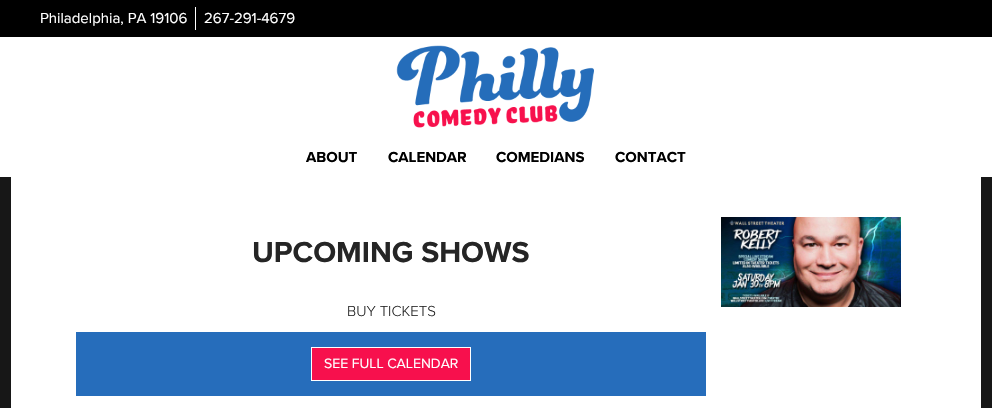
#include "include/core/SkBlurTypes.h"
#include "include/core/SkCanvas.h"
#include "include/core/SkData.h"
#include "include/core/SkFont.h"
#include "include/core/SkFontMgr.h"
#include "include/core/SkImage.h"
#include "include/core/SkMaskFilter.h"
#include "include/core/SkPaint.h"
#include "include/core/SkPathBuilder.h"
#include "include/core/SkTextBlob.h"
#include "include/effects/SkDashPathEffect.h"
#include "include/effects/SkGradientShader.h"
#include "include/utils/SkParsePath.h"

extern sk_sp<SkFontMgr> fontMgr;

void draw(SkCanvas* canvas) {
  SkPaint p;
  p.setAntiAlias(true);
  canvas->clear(SkColorSetRGB(23, 23, 23));
  p.setColor(SK_ColorWHITE);
  canvas->drawRect(SkRect::MakeLTRB(0, 37, 992, 177), p);
  p.setColor(SK_ColorBLACK);
  canvas->drawRect(SkRect::MakeLTRB(0, 0, 992, 37), p);
  p.setColor(SK_ColorWHITE);
  canvas->drawRect(SkRect::MakeLTRB(195, 7, 196, 30), p);
  canvas->drawImageRect(SkImages::DeferredFromEncodedData(SkData::MakeFromFileName("images/1.png")), SkRect::MakeLTRB(396, 45, 594, 128), SkSamplingOptions());
  canvas->drawRect(SkRect::MakeLTRB(11, 177, 981, 408), p);
  p.setColor(SkColorSetRGB(38, 109, 187));
  canvas->drawRect(SkRect::MakeLTRB(76, 332, 706, 396), p);
  p.setColor(SkColorSetRGB(247, 16, 77));
  canvas->drawRect(SkRect::MakeLTRB(311.5f, 347.5f, 470.5f, 380.5f), p);
  p.setStyle(SkPaint::kStroke_Style);
  p.setStrokeWidth(1);
  p.setColor(SK_ColorWHITE);
  canvas->drawRect(SkRect::MakeLTRB(311.5f, 347.5f, 470.5f, 380.5f), p);
  canvas->drawImageRect(SkImages::DeferredFromEncodedData(SkData::MakeFromFileName("images/2.png")), SkRect::MakeLTRB(721, 217, 901, 307), SkSamplingOptions());
  SkFont font1(fontMgr->matchFamilyStyle("Proxima Nova", SkFontStyle::Normal()), 15);
  font1.setSubpixel(true);
  p.setStyle(SkPaint::kFill_Style);
  canvas->drawString("Philadelphia, PA 19106", 40, 23, font1, p);
  canvas->drawString("267-291-4679", 204, 23, font1, p);
  SkFont font2(fontMgr->matchFamilyStyle("Proxima Nova", SkFontStyle::Bold()), 15);
  font2.setSubpixel(true);
  p.setColor(SK_ColorBLACK);
  canvas->drawString("ABOUT", 306, 162, font2, p);
  canvas->drawString("CALENDAR", 388, 162, font2, p);
  canvas->drawString("COMEDIANS", 496, 162, font2, p);
  canvas->drawString("CONTACT", 615, 162, font2, p);
  SkFont font3(fontMgr->matchFamilyStyle("Proxima Nova", SkFontStyle::Bold()), 30);
  font3.setSubpixel(true);
  p.setColor(SkColorSetRGB(37, 37, 37));
  canvas->drawString("UPCOMING SHOWS", 252, 262, font3, p);
  SkFont font4(fontMgr->matchFamilyStyle("Proxima Nova", SkFontStyle(300, SkFontStyle::kNormal_Width, SkFontStyle::kUpright_Slant)), 15);
  font4.setSubpixel(true);
  canvas->drawString("BUY TICKETS", 347, 316, font4, p);
  SkFont font5(fontMgr->matchFamilyStyle("Proxima Nova", SkFontStyle::Normal()), 14);
  font5.setSubpixel(true);
  p.setColor(SK_ColorWHITE);
  canvas->drawString("SEE FULL CALENDAR", 324, 368, font5, p);
}
